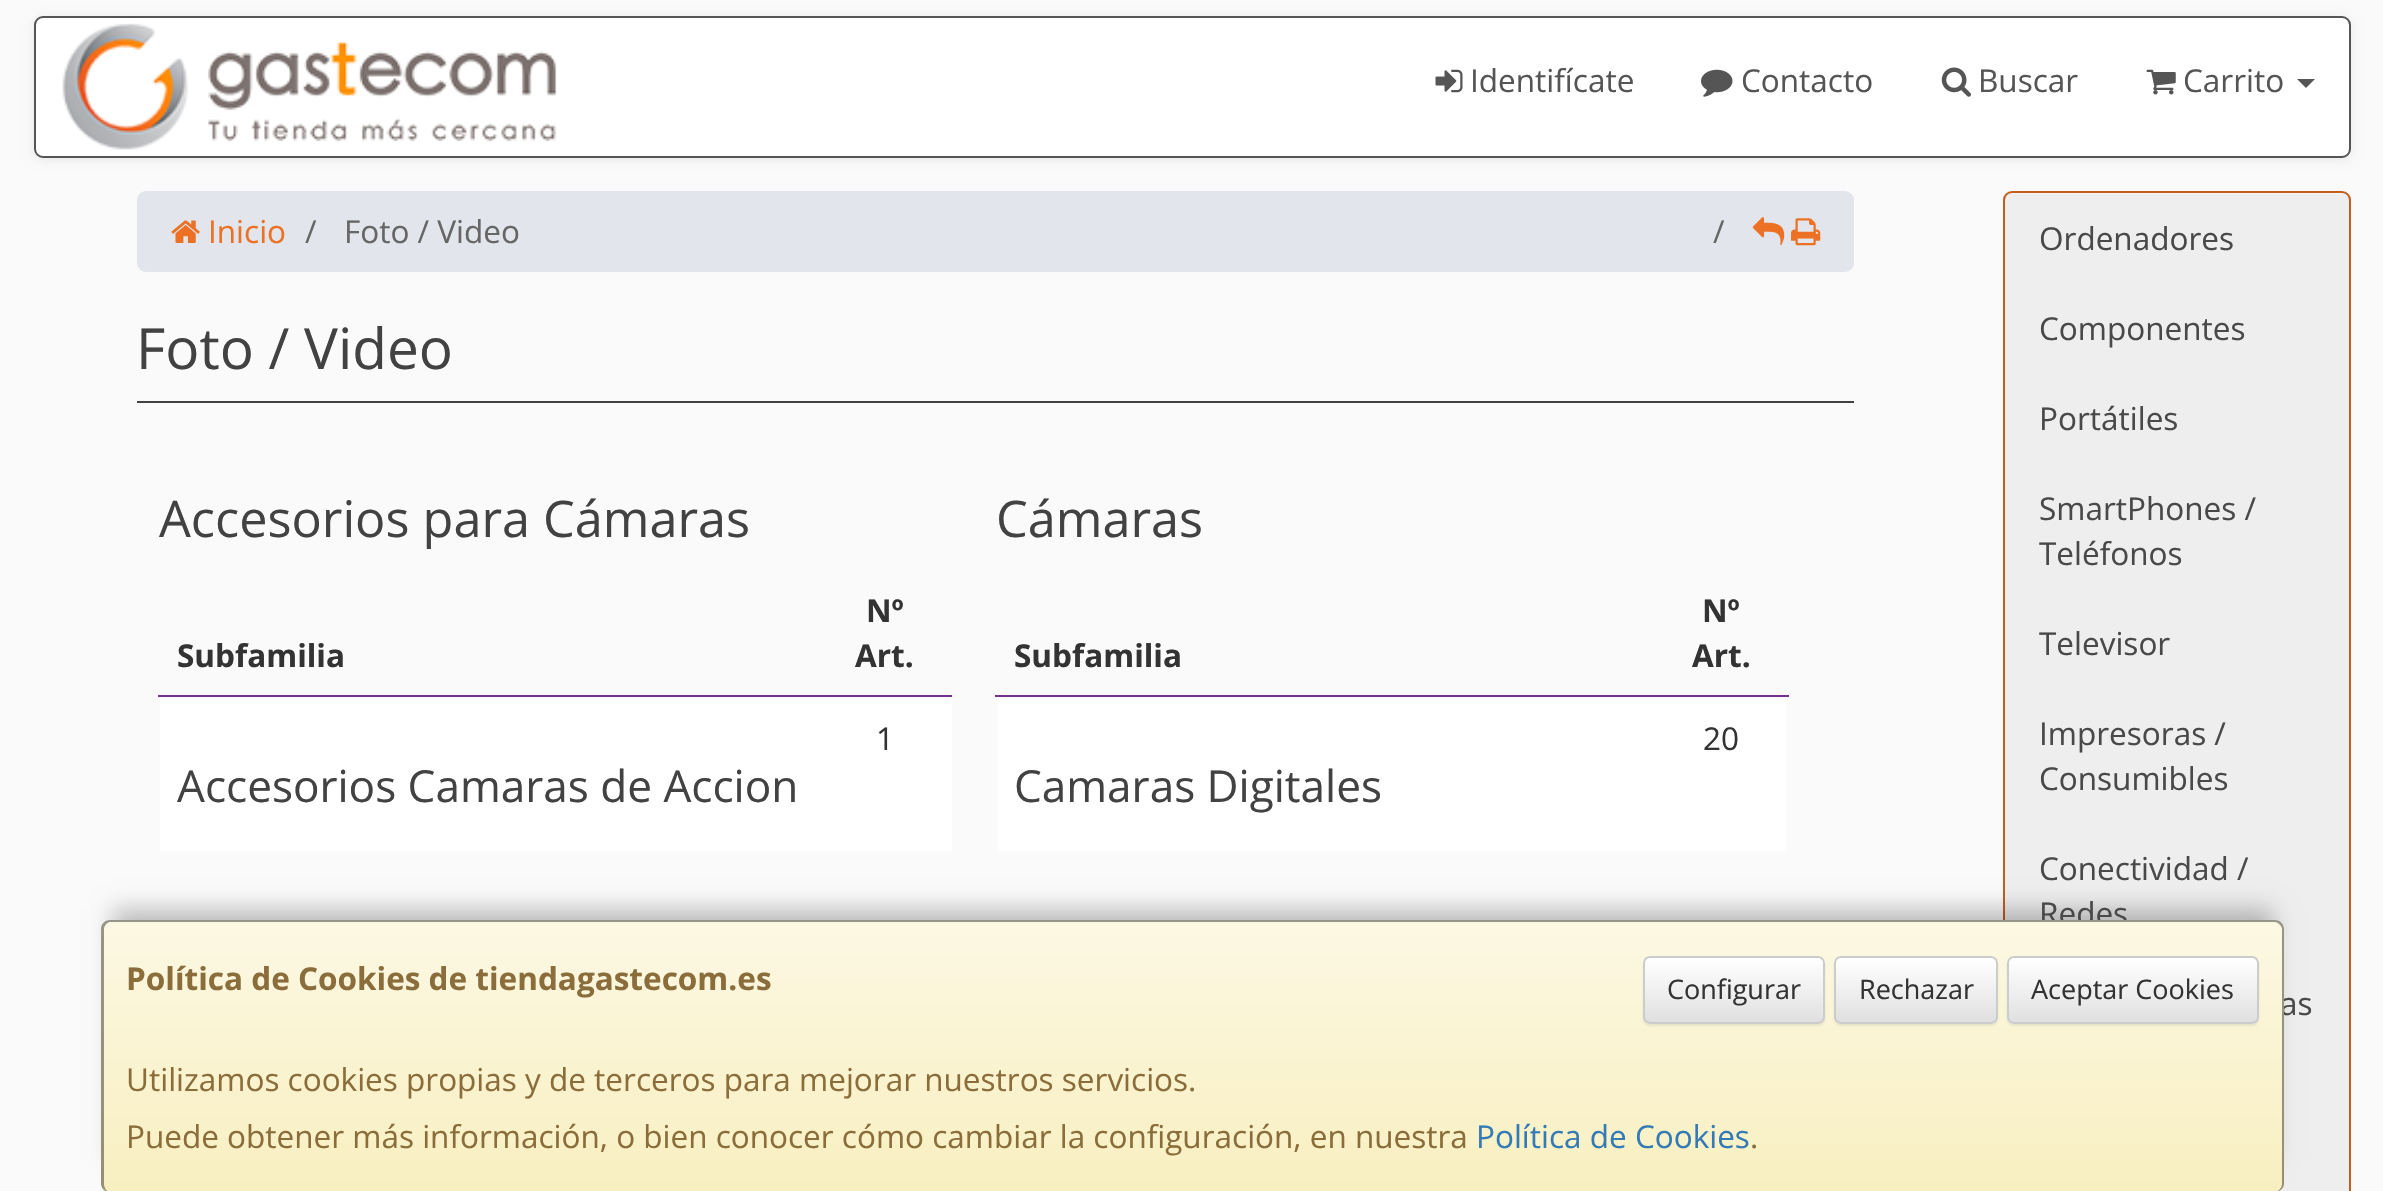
#include "include/core/SkBlurTypes.h"
#include "include/core/SkCanvas.h"
#include "include/core/SkData.h"
#include "include/core/SkFont.h"
#include "include/core/SkFontMgr.h"
#include "include/core/SkImage.h"
#include "include/core/SkMaskFilter.h"
#include "include/core/SkPaint.h"
#include "include/core/SkPathBuilder.h"
#include "include/core/SkTextBlob.h"
#include "include/effects/SkDashPathEffect.h"
#include "include/effects/SkGradientShader.h"
#include "include/utils/SkParsePath.h"

extern sk_sp<SkFontMgr> fontMgr;

void draw(SkCanvas* canvas) {
  SkPaint p;
  p.setAntiAlias(true);
  canvas->clear(SkColorSetRGB(250, 250, 250));
  p.setColor(SkColorSetARGB(18, 0, 0, 0));
  p.setMaskFilter(SkMaskFilter::MakeBlur(kNormal_SkBlurStyle, 5.5f));
  canvas->drawRoundRect(SkRect::MakeLTRB(34, 18, 2351, 160), 9, 9, p);
  p.setMaskFilter(nullptr);
  p.setColor(SK_ColorWHITE);
  canvas->drawRoundRect(SkRect::MakeLTRB(35, 17, 2350, 157), 8, 8, p);
  p.setStyle(SkPaint::kStroke_Style);
  p.setStrokeWidth(2);
  p.setColor(SkColorSetRGB(85, 85, 85));
  canvas->drawRoundRect(SkRect::MakeLTRB(35, 17, 2350, 157), 8, 8, p);
  canvas->drawImageRect(SkImages::DeferredFromEncodedData(SkData::MakeFromFileName("images/1.png")), SkRect::MakeLTRB(62, 23, 557, 150), SkSamplingOptions());
  canvas->drawImageRect(SkImages::DeferredFromEncodedData(SkData::MakeFromFileName("images/2.png")), SkRect::MakeLTRB(1435, 69, 1463, 93), SkSamplingOptions());
  canvas->drawImageRect(SkImages::DeferredFromEncodedData(SkData::MakeFromFileName("images/3.png")), SkRect::MakeLTRB(1701, 69, 1733, 97), SkSamplingOptions());
  canvas->drawImageRect(SkImages::DeferredFromEncodedData(SkData::MakeFromFileName("images/4.png")), SkRect::MakeLTRB(1941, 67, 1971, 97), SkSamplingOptions());
  canvas->drawImageRect(SkImages::DeferredFromEncodedData(SkData::MakeFromFileName("images/5.png")), SkRect::MakeLTRB(2146, 69, 2176, 95), SkSamplingOptions());
  p.setStyle(SkPaint::kFill_Style);
  canvas->drawPath(SkPathBuilder().moveTo(2297, 79).lineTo(2315, 79).lineTo(2306, 88).close().detach(), p);
  p.setColor(SkColorSetRGB(226, 229, 236));
  canvas->drawRoundRect(SkRect::MakeLTRB(137, 191, 1854, 272), 9, 9, p);
  canvas->drawImageRect(SkImages::DeferredFromEncodedData(SkData::MakeFromFileName("images/6.png")), SkRect::MakeLTRB(171, 220, 200, 243), SkSamplingOptions());
  canvas->drawImageRect(SkImages::DeferredFromEncodedData(SkData::MakeFromFileName("images/7.png")), SkRect::MakeLTRB(1752, 217, 1785, 246), SkSamplingOptions());
  canvas->drawImageRect(SkImages::DeferredFromEncodedData(SkData::MakeFromFileName("images/8.png")), SkRect::MakeLTRB(1791, 218, 1821, 246), SkSamplingOptions());
  p.setColor(SkColorSetRGB(66, 66, 66));
  canvas->drawRect(SkRect::MakeLTRB(137, 401, 1854, 403), p);
  p.setColor(SkColorSetRGB(115, 51, 141));
  canvas->drawRect(SkRect::MakeLTRB(158, 695, 952, 697), p);
  p.setColor(SK_ColorWHITE);
  canvas->drawRect(SkRect::MakeLTRB(160, 698, 952, 851), p);
  p.setColor(SkColorSetRGB(115, 51, 141));
  canvas->drawRect(SkRect::MakeLTRB(995, 695, 1789, 697), p);
  p.setColor(SK_ColorWHITE);
  canvas->drawRect(SkRect::MakeLTRB(997, 698, 1787, 851), p);
  p.setColor(SkColorSetRGB(245, 245, 245));
  canvas->drawRoundRect(SkRect::MakeLTRB(2003, 191, 2351, 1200), 9, 9, p);
  canvas->save();
  canvas->clipPath(SkPathBuilder().moveTo(2012, 191).lineTo(2342, 191).cubicTo(2347, 191, 2351, 195, 2351, 200).lineTo(2351, 1582).cubicTo(2351, 1587, 2347, 1591, 2342, 1591).lineTo(2012, 1591).cubicTo(2007, 1591, 2003, 1587, 2003, 1582).lineTo(2003, 200).cubicTo(2003, 195, 2007, 191, 2012, 191).close().detach(), true);
  p.setColor(SkColorSetRGB(238, 238, 238));
  canvas->drawRect(SkRect::MakeLTRB(2003, 194, 2351, 1191), p);
  canvas->restore();
  p.setStyle(SkPaint::kStroke_Style);
  p.setColor(SkColorSetRGB(196, 94, 30));
  canvas->drawRoundRect(SkRect::MakeLTRB(2004, 192, 2350, 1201), 8, 8, p);
  p.setStyle(SkPaint::kFill_Style);
  p.setColor(SkColorSetARGB(64, 0, 0, 0));
  p.setMaskFilter(SkMaskFilter::MakeBlur(kNormal_SkBlurStyle, 11));
  canvas->drawRect(SkRect::MakeLTRB(113, 909, 2273, 1159), p);
  p.setMaskFilter(nullptr);
  SkFont font1(fontMgr->matchFamilyStyle("Open Sans", SkFontStyle::Normal()), 31.5f);
  font1.setSubpixel(true);
  p.setColor(SkColorSetRGB(85, 85, 85));
  canvas->drawString("Identifícate", 1470, 92, font1, p);
  canvas->drawString("Contacto", 1741, 92, font1, p);
  canvas->drawString("Buscar", 1978, 92, font1, p);
  canvas->drawString("Carrito", 2183, 92, font1, p);
  p.setColor(SkColorSetRGB(236, 113, 36));
  canvas->drawString("Inicio", 208, 243, font1, p);
  p.setColor(SkColorSetRGB(102, 102, 102));
  canvas->drawString("/", 305, 243, font1, p);
  canvas->drawString("Foto / Video", 344, 243, font1, p);
  canvas->drawString("/", 1713, 243, font1, p);
  SkFont font2(fontMgr->matchFamilyStyle("Open Sans", SkFontStyle::Normal()), 56.75f);
  font2.setSubpixel(true);
  p.setColor(SkColorSetRGB(66, 66, 66));
  canvas->drawString("Foto / Video", 136, 369, font2, p);
  SkFont font3(fontMgr->matchFamilyStyle("Open Sans", SkFontStyle::Normal()), 50.4f);
  font3.setSubpixel(true);
  canvas->drawString("Accesorios para Cámaras", 159, 537, font3, p);
  SkFont font4(fontMgr->matchFamilyStyle("Open Sans", SkFontStyle::Bold()), 31.5f);
  font4.setSubpixel(true);
  p.setColor(SkColorSetRGB(51, 51, 51));
  canvas->drawString("Subfamilia", 177, 667, font4, p);
  canvas->drawString("Nº", 866, 622, font4, p);
  canvas->drawString("Art.", 855, 667, font4, p);
  canvas->drawString("1", 876, 750, font1, p);
  SkFont font5(fontMgr->matchFamilyStyle("Open Sans", SkFontStyle::Normal()), 44.1f);
  font5.setSubpixel(true);
  p.setColor(SkColorSetRGB(66, 66, 66));
  canvas->drawString("Accesorios Camaras de Accion", 177, 802, font5, p);
  canvas->drawString("Cámaras", 996, 537, font3, p);
  p.setColor(SkColorSetRGB(51, 51, 51));
  canvas->drawString("Subfamilia", 1014, 667, font4, p);
  canvas->drawString("Nº", 1702, 622, font4, p);
  canvas->drawString("Art.", 1692, 667, font4, p);
  canvas->drawString("20", 1703, 750, font1, p);
  p.setColor(SkColorSetRGB(66, 66, 66));
  canvas->drawString("Camaras Digitales", 1014, 802, font5, p);
  p.setColor(SkColorSetRGB(73, 73, 73));
  canvas->drawString("Ordenadores", 2039, 250, font1, p);
  canvas->drawString("Componentes", 2039, 340, font1, p);
  canvas->drawString("Portátiles", 2039, 430, font1, p);
  canvas->drawString("SmartPhones /", 2039, 520, font1, p);
  canvas->drawString("Teléfonos", 2039, 565, font1, p);
  canvas->drawString("Televisor", 2039, 655, font1, p);
  canvas->drawString("Impresoras /", 2039, 745, font1, p);
  canvas->drawString("Consumibles", 2039, 790, font1, p);
  canvas->drawString("Conectividad /", 2039, 880, font1, p);
  canvas->drawString("Redes", 2039, 925, font1, p);
  canvas->drawString("as", 2280, 1015, font1, p);
  p.setColor(SkColorSetRGB(252, 248, 227));
  canvas->drawRoundRect(SkRect::MakeLTRB(101, 920, 2284, 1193), 9, 9, p);
  canvas->save();
  canvas->clipPath(SkPathBuilder().moveTo(110, 920).lineTo(2275, 920).cubicTo(2280, 920, 2284, 924, 2284, 929).lineTo(2284, 1184).cubicTo(2284, 1189, 2280, 1193, 2275, 1193).lineTo(110, 1193).cubicTo(105, 1193, 101, 1189, 101, 1184).lineTo(101, 929).cubicTo(101, 924, 105, 920, 110, 920).close().detach(), true);
  {
    const SkColor colors[] = {SkColorSetRGB(252, 248, 227), SkColorSetRGB(248, 239, 192)};
    const float stops[] = {0, 1};
    const SkPoint ends[] = {{1193, 922}, {1193, 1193}};
    p.setShader(SkGradientShader::MakeLinear(ends, colors, stops, 2, SkTileMode::kClamp));
    p.setAlpha(255);
  }
  canvas->drawPath(SkPathBuilder().moveTo(101, 923).lineTo(2284, 923).lineTo(2284, 1184).cubicTo(2284, 1189, 2280, 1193, 2275, 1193).lineTo(110, 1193).cubicTo(105, 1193, 101, 1189, 101, 1184).close().detach(), p);
  canvas->restore();
  p.setShader(nullptr);
  p.setColor(SkColorSetARGB(102, 0, 0, 0));
  canvas->drawPath(SkPathBuilder(SkPathFillType::kEvenOdd).moveTo(110, 920).lineTo(2275, 920).cubicTo(2280, 920, 2284, 924, 2284, 929).lineTo(2284, 1184).cubicTo(2284, 1188, 2280, 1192, 2275, 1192).lineTo(110, 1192).cubicTo(105, 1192, 101, 1188, 101, 1184).lineTo(101, 929).cubicTo(101, 924, 105, 920, 110, 920).close().moveTo(110, 922).lineTo(2275, 922).cubicTo(2278, 922, 2282, 926, 2282, 929).lineTo(2282, 1184).cubicTo(2282, 1188, 2278, 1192, 2275, 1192).lineTo(110, 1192).cubicTo(107, 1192, 104, 1188, 104, 1184).lineTo(104, 929).cubicTo(104, 926, 107, 922, 110, 922).close().detach(), p);
  p.setColor(SkColorSetRGB(138, 109, 59));
  canvas->drawString("Política de Cookies de tiendagastecom.es", 126, 990, font4, p);
  p.setColor(SkColorSetARGB(18, 0, 0, 0));
  p.setMaskFilter(SkMaskFilter::MakeBlur(kNormal_SkBlurStyle, 1));
  canvas->drawRoundRect(SkRect::MakeLTRB(1643, 959, 1825, 1026), 7, 7, p);
  p.setMaskFilter(nullptr);
  p.setColor(SK_ColorWHITE);
  canvas->drawRoundRect(SkRect::MakeLTRB(1643, 956, 1825, 1024), 7, 7, p);
  canvas->save();
  canvas->clipPath(SkPathBuilder().moveTo(1650, 956).lineTo(1818, 956).cubicTo(1822, 956, 1825, 959, 1825, 963).lineTo(1825, 1017).cubicTo(1825, 1021, 1822, 1024, 1818, 1024).lineTo(1650, 1024).cubicTo(1646, 1024, 1643, 1021, 1643, 1017).lineTo(1643, 963).cubicTo(1643, 959, 1646, 956, 1650, 956).close().detach(), true);
  {
    const SkColor colors[] = {SK_ColorWHITE, SkColorSetRGB(224, 224, 224)};
    const float stops[] = {0, 1};
    const SkPoint ends[] = {{1734, 959}, {1734, 1022}};
    p.setShader(SkGradientShader::MakeLinear(ends, colors, stops, 2, SkTileMode::kClamp));
    p.setAlpha(255);
  }
  canvas->drawRect(SkRect::MakeLTRB(1643, 959, 1825, 1022), p);
  canvas->restore();
  p.setShader(nullptr);
  p.setColor(SkColorSetARGB(38, 255, 255, 255));
  canvas->drawPath(SkPathBuilder().moveTo(1649, 961).lineTo(1818, 961).cubicTo(1820, 961, 1822, 963, 1822, 965).lineTo(1822, 1020).cubicTo(1823, 1019, 1823, 1018, 1823, 1017).lineTo(1823, 964).cubicTo(1823, 961, 1821, 959, 1818, 959).lineTo(1650, 959).cubicTo(1647, 959, 1645, 961, 1645, 964).lineTo(1645, 965).cubicTo(1645, 963, 1647, 961, 1649, 961).close().detach(), p);
  p.setStyle(SkPaint::kStroke_Style);
  p.setColor(SkColorSetRGB(204, 204, 204));
  canvas->drawRoundRect(SkRect::MakeLTRB(1644, 957, 1824, 1023), 6, 6, p);
  SkFont font6(fontMgr->matchFamilyStyle("Open Sans", SkFontStyle::Normal()), 27);
  font6.setSubpixel(true);
  p.setStyle(SkPaint::kFill_Style);
  p.setColor(SkColorSetRGB(51, 51, 51));
  canvas->drawString("Configurar", 1667, 999, font6, p);
  p.setColor(SkColorSetARGB(18, 0, 0, 0));
  p.setMaskFilter(SkMaskFilter::MakeBlur(kNormal_SkBlurStyle, 1));
  canvas->drawRoundRect(SkRect::MakeLTRB(1834, 959, 1998, 1026), 7, 7, p);
  p.setMaskFilter(nullptr);
  p.setColor(SK_ColorWHITE);
  canvas->drawRoundRect(SkRect::MakeLTRB(1834, 956, 1998, 1024), 7, 7, p);
  canvas->save();
  canvas->clipPath(SkPathBuilder().moveTo(1841, 956).lineTo(1991, 956).cubicTo(1995, 956, 1998, 959, 1998, 963).lineTo(1998, 1017).cubicTo(1998, 1021, 1995, 1024, 1991, 1024).lineTo(1841, 1024).cubicTo(1837, 1024, 1834, 1021, 1834, 1017).lineTo(1834, 963).cubicTo(1834, 959, 1837, 956, 1841, 956).close().detach(), true);
  {
    const SkColor colors[] = {SK_ColorWHITE, SkColorSetRGB(224, 224, 224)};
    const float stops[] = {0, 1};
    const SkPoint ends[] = {{1916, 959}, {1916, 1022}};
    p.setShader(SkGradientShader::MakeLinear(ends, colors, stops, 2, SkTileMode::kClamp));
    p.setAlpha(255);
  }
  canvas->drawRect(SkRect::MakeLTRB(1834, 959, 1998, 1022), p);
  canvas->restore();
  p.setStyle(SkPaint::kStroke_Style);
  p.setShader(nullptr);
  p.setColor(SkColorSetRGB(204, 204, 204));
  canvas->drawRoundRect(SkRect::MakeLTRB(1835, 957, 1997, 1023), 6, 6, p);
  p.setStyle(SkPaint::kFill_Style);
  p.setColor(SkColorSetRGB(51, 51, 51));
  canvas->drawString("Rechazar", 1859, 999, font6, p);
  p.setColor(SkColorSetARGB(18, 0, 0, 0));
  p.setMaskFilter(SkMaskFilter::MakeBlur(kNormal_SkBlurStyle, 1));
  canvas->drawRoundRect(SkRect::MakeLTRB(2007, 959, 2259, 1026), 7, 7, p);
  p.setMaskFilter(nullptr);
  p.setColor(SK_ColorWHITE);
  canvas->drawRoundRect(SkRect::MakeLTRB(2007, 956, 2259, 1024), 7, 7, p);
  canvas->save();
  canvas->clipPath(SkPathBuilder().moveTo(2014, 956).lineTo(2252, 956).cubicTo(2256, 956, 2259, 959, 2259, 963).lineTo(2259, 1017).cubicTo(2259, 1021, 2256, 1024, 2252, 1024).lineTo(2014, 1024).cubicTo(2010, 1024, 2007, 1021, 2007, 1017).lineTo(2007, 963).cubicTo(2007, 959, 2010, 956, 2014, 956).close().detach(), true);
  {
    const SkColor colors[] = {SK_ColorWHITE, SkColorSetRGB(224, 224, 224)};
    const float stops[] = {0, 1};
    const SkPoint ends[] = {{2133, 959}, {2133, 1022}};
    p.setShader(SkGradientShader::MakeLinear(ends, colors, stops, 2, SkTileMode::kClamp));
    p.setAlpha(255);
  }
  canvas->drawRect(SkRect::MakeLTRB(2007, 959, 2259, 1022), p);
  canvas->restore();
  p.setStyle(SkPaint::kStroke_Style);
  p.setShader(nullptr);
  p.setColor(SkColorSetRGB(204, 204, 204));
  canvas->drawRoundRect(SkRect::MakeLTRB(2008, 957, 2258, 1023), 6, 6, p);
  p.setStyle(SkPaint::kFill_Style);
  p.setColor(SkColorSetRGB(51, 51, 51));
  canvas->drawString("Aceptar Cookies", 2031, 999, font6, p);
  p.setColor(SkColorSetRGB(138, 109, 59));
  canvas->drawString("Utilizamos cookies propias y de terceros para mejorar nuestros servicios.", 126, 1091, font1, p);
  canvas->drawString("Puede obtener más información, o bien conocer cómo cambiar la configuración, en nuestra", 126, 1148, font1, p);
  p.setColor(SkColorSetRGB(51, 122, 183));
  canvas->drawString("Política de Cookies", 1476, 1148, font1, p);
  p.setColor(SkColorSetRGB(138, 109, 59));
  canvas->drawString(".", 1750, 1148, font1, p);
}
